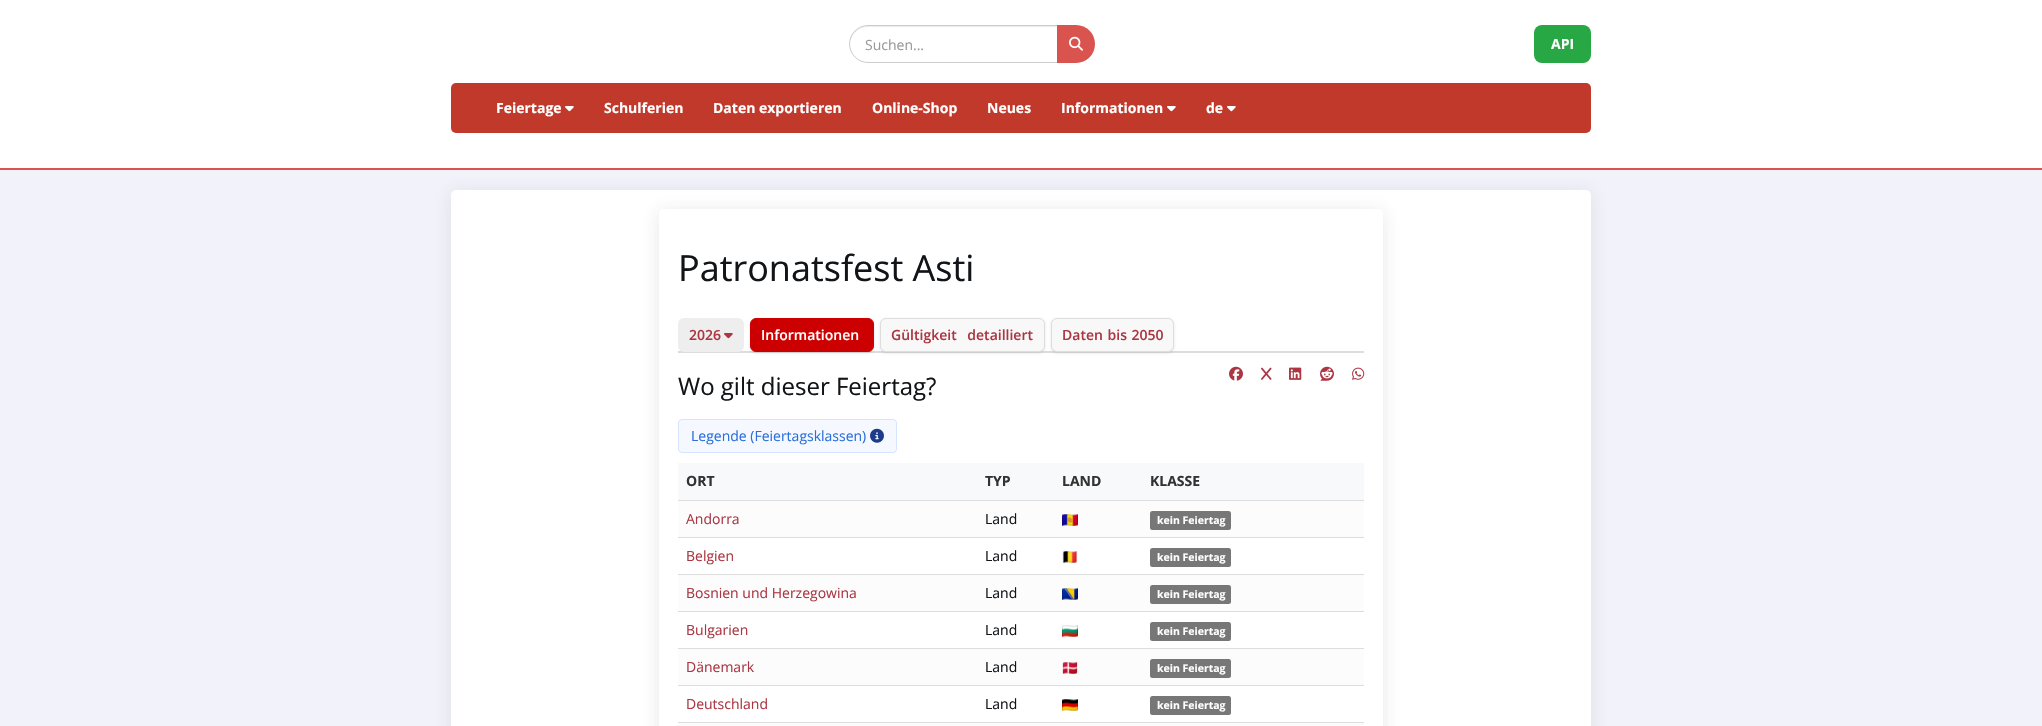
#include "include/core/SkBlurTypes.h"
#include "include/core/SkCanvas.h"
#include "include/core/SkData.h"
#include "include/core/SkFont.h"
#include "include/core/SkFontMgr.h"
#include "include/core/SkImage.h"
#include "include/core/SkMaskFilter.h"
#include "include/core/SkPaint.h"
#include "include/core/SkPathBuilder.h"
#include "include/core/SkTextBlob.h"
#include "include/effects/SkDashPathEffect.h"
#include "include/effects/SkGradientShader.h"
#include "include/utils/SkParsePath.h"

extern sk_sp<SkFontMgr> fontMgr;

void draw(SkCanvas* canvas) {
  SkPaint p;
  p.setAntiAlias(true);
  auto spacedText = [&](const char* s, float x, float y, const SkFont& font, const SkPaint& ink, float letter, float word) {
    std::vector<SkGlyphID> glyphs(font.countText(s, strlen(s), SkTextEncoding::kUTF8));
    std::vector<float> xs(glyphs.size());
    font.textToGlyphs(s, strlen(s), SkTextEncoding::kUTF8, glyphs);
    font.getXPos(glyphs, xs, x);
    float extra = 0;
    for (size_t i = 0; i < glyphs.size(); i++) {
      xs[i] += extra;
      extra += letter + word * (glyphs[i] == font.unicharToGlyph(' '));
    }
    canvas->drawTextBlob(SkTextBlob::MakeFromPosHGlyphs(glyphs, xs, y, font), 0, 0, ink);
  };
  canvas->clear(SkColorSetRGB(242, 243, 250));
  p.setColor(SK_ColorWHITE);
  canvas->drawRect(SkRect::MakeLTRB(0, 0, 2042, 168), p);
  p.setColor(SkColorSetRGB(217, 83, 79));
  canvas->drawRect(SkRect::MakeLTRB(0, 168, 2042, 170), p);
  p.setColor(SkColorSetRGB(236, 236, 236));
  canvas->drawPath(SkPathBuilder().moveTo(868, 27).lineTo(1057, 27).lineTo(1057, 26).lineTo(900, 26).cubicTo(886, 26, 849, 19, 850, 44).cubicTo(850, 35, 858, 27, 868, 27).close().detach(), p);
  p.setStyle(SkPaint::kStroke_Style);
  p.setStrokeWidth(1);
  p.setColor(SkColorSetRGB(204, 204, 204));
  canvas->drawPath(SkPathBuilder().moveTo(868, 25.5f).lineTo(1057.5f, 25.5f).lineTo(1057.5f, 62.5f).lineTo(868, 62.5f).cubicTo(858, 62.5f, 849.5f, 54, 849.5f, 44).cubicTo(849.5f, 34, 858, 25.5f, 868, 25.5f).close().detach(), p);
  p.setStyle(SkPaint::kFill_Style);
  p.setColor(SkColorSetRGB(217, 83, 79));
  canvas->drawPath(SkPathBuilder().moveTo(1057, 25).lineTo(1076, 25).cubicTo(1086.5f, 25, 1095, 33.5f, 1095, 44).cubicTo(1095, 54.5f, 1086.5f, 63, 1076, 63).lineTo(1057, 63).close().detach(), p);
  canvas->drawImageRect(SkImages::DeferredFromEncodedData(SkData::MakeFromFileName("images/1.png")), SkRect::MakeLTRB(1069, 36, 1083, 51), SkSamplingOptions());
  p.setColor(SkColorSetRGB(40, 167, 69));
  canvas->drawRoundRect(SkRect::MakeLTRB(1534, 25, 1591, 63), 8, 8, p);
  p.setColor(SkColorSetRGB(192, 57, 43));
  canvas->drawRoundRect(SkRect::MakeLTRB(451, 83, 1591, 133), 5, 5, p);
  canvas->drawImageRect(SkImages::DeferredFromEncodedData(SkData::MakeFromFileName("images/2.png")), SkRect::MakeLTRB(565, 106, 574, 112), SkSamplingOptions());
  canvas->drawImageRect(SkImages::DeferredFromEncodedData(SkData::MakeFromFileName("images/2.png")), SkRect::MakeLTRB(1167, 106, 1176, 112), SkSamplingOptions());
  canvas->drawImageRect(SkImages::DeferredFromEncodedData(SkData::MakeFromFileName("images/2.png")), SkRect::MakeLTRB(1227, 106, 1236, 112), SkSamplingOptions());
  p.setColor(SkColorSetARGB(26, 49, 53, 72));
  p.setMaskFilter(SkMaskFilter::MakeBlur(kNormal_SkBlurStyle, 9));
  canvas->drawRoundRect(SkRect::MakeLTRB(450, 191, 1592, 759), 6, 6, p);
  p.setMaskFilter(nullptr);
  p.setColor(SK_ColorWHITE);
  canvas->drawRoundRect(SkRect::MakeLTRB(451, 190, 1591, 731), 5, 5, p);
  canvas->save();
  canvas->clipPath(SkPathBuilder(SkPathFillType::kEvenOdd).moveTo(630, 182).lineTo(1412, 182).lineTo(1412, 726).lineTo(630, 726).close().moveTo(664, 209).lineTo(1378, 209).cubicTo(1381, 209, 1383, 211, 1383, 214).lineTo(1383, 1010).cubicTo(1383, 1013, 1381, 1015, 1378, 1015).lineTo(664, 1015).cubicTo(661, 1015, 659, 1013, 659, 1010).lineTo(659, 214).cubicTo(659, 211, 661, 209, 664, 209).close().detach(), true);
  p.setColor(SkColorSetARGB(26, 49, 53, 72));
  p.setMaskFilter(SkMaskFilter::MakeBlur(kNormal_SkBlurStyle, 9));
  canvas->drawRoundRect(SkRect::MakeLTRB(658, 210, 1384, 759), 6, 6, p);
  p.setMaskFilter(nullptr);
  canvas->restore();
  p.setColor(SkColorSetRGB(221, 221, 221));
  canvas->drawRect(SkRect::MakeLTRB(678, 351, 1364, 353), p);
  p.setColor(SkColorSetRGB(238, 238, 238));
  canvas->drawRoundRect(SkRect::MakeLTRB(678, 318, 744, 352), 6, 6, p);
  canvas->drawImageRect(SkImages::DeferredFromEncodedData(SkData::MakeFromFileName("images/3.png")), SkRect::MakeLTRB(724, 333, 733, 339), SkSamplingOptions());
  p.setColor(SkColorSetARGB(26, 0, 0, 0));
  p.setMaskFilter(SkMaskFilter::MakeBlur(kNormal_SkBlurStyle, 1.5f));
  canvas->drawRoundRect(SkRect::MakeLTRB(750, 319, 874, 353), 6, 6, p);
  p.setMaskFilter(nullptr);
  p.setColor(SkColorSetRGB(204, 0, 0));
  canvas->drawRoundRect(SkRect::MakeLTRB(750.5f, 318.5f, 873.5f, 351.5f), 5.5f, 5.5f, p);
  p.setStyle(SkPaint::kStroke_Style);
  canvas->drawRoundRect(SkRect::MakeLTRB(750.5f, 318.5f, 873.5f, 351.5f), 5.5f, 5.5f, p);
  p.setStyle(SkPaint::kFill_Style);
  p.setColor(SkColorSetARGB(26, 0, 0, 0));
  p.setMaskFilter(SkMaskFilter::MakeBlur(kNormal_SkBlurStyle, 1.5f));
  canvas->drawRoundRect(SkRect::MakeLTRB(880, 319, 1045, 353), 6, 6, p);
  p.setMaskFilter(nullptr);
  p.setColor(SkColorSetRGB(248, 248, 248));
  canvas->drawRoundRect(SkRect::MakeLTRB(880.5f, 318.5f, 1044.5f, 351.5f), 5.5f, 5.5f, p);
  p.setStyle(SkPaint::kStroke_Style);
  p.setColor(SkColorSetRGB(221, 221, 221));
  canvas->drawRoundRect(SkRect::MakeLTRB(880.5f, 318.5f, 1044.5f, 351.5f), 5.5f, 5.5f, p);
  p.setStyle(SkPaint::kFill_Style);
  p.setColor(SkColorSetARGB(26, 0, 0, 0));
  p.setMaskFilter(SkMaskFilter::MakeBlur(kNormal_SkBlurStyle, 1.5f));
  canvas->drawRoundRect(SkRect::MakeLTRB(1051, 319, 1174, 353), 6, 6, p);
  p.setMaskFilter(nullptr);
  p.setColor(SkColorSetRGB(248, 248, 248));
  canvas->drawRoundRect(SkRect::MakeLTRB(1051.5f, 318.5f, 1173.5f, 351.5f), 5.5f, 5.5f, p);
  p.setStyle(SkPaint::kStroke_Style);
  p.setColor(SkColorSetRGB(221, 221, 221));
  canvas->drawRoundRect(SkRect::MakeLTRB(1051.5f, 318.5f, 1173.5f, 351.5f), 5.5f, 5.5f, p);
  canvas->drawImageRect(SkImages::DeferredFromEncodedData(SkData::MakeFromFileName("images/4.png")), SkRect::MakeLTRB(1229, 366, 1243, 381), SkSamplingOptions());
  canvas->drawImageRect(SkImages::DeferredFromEncodedData(SkData::MakeFromFileName("images/5.png")), SkRect::MakeLTRB(1261, 367, 1272, 380), SkSamplingOptions());
  canvas->drawImageRect(SkImages::DeferredFromEncodedData(SkData::MakeFromFileName("images/6.png")), SkRect::MakeLTRB(1289, 367, 1302, 380), SkSamplingOptions());
  canvas->drawImageRect(SkImages::DeferredFromEncodedData(SkData::MakeFromFileName("images/7.png")), SkRect::MakeLTRB(1320, 366, 1334, 381), SkSamplingOptions());
  canvas->drawImageRect(SkImages::DeferredFromEncodedData(SkData::MakeFromFileName("images/8.png")), SkRect::MakeLTRB(1352, 367, 1365, 380), SkSamplingOptions());
  p.setStyle(SkPaint::kFill_Style);
  p.setColor(SkColorSetRGB(245, 249, 255));
  canvas->drawRoundRect(SkRect::MakeLTRB(678.5f, 419.5f, 896.5f, 452.5f), 3.5f, 3.5f, p);
  p.setStyle(SkPaint::kStroke_Style);
  p.setColor(SkColorSetRGB(214, 228, 255));
  canvas->drawRoundRect(SkRect::MakeLTRB(678.5f, 419.5f, 896.5f, 452.5f), 3.5f, 3.5f, p);
  canvas->drawImageRect(SkImages::DeferredFromEncodedData(SkData::MakeFromFileName("images/9.png")), SkRect::MakeLTRB(870, 428, 884, 443), SkSamplingOptions());
  p.setStyle(SkPaint::kFill_Style);
  p.setColor(SkColorSetRGB(248, 249, 250));
  canvas->drawRect(SkRect::MakeLTRB(678, 463, 1364, 500), p);
  p.setColor(SkColorSetRGB(221, 221, 221));
  canvas->drawRect(SkRect::MakeLTRB(678, 500, 1364, 501), p);
  p.setColor(SkColorSetRGB(252, 252, 252));
  canvas->drawRect(SkRect::MakeLTRB(678, 501, 1364, 537), p);
  canvas->drawImageRect(SkImages::DeferredFromEncodedData(SkData::MakeFromFileName("images/10.png")), SkRect::MakeLTRB(1062, 514, 1078, 526), SkSamplingOptions());
  p.setColor(SkColorSetRGB(119, 119, 119));
  canvas->drawRoundRect(SkRect::MakeLTRB(1150, 511, 1231, 530), 2.5f, 2.5f, p);
  canvas->drawImageRect(SkImages::DeferredFromEncodedData(SkData::MakeFromFileName("images/11.png")), SkRect::MakeLTRB(1062, 551, 1078, 563), SkSamplingOptions());
  p.setColor(SkColorSetRGB(221, 221, 221));
  canvas->drawRect(SkRect::MakeLTRB(678, 537, 1364, 538), p);
  p.setColor(SkColorSetRGB(119, 119, 119));
  canvas->drawRoundRect(SkRect::MakeLTRB(1150, 548, 1231, 567), 2.5f, 2.5f, p);
  p.setColor(SkColorSetRGB(252, 252, 252));
  canvas->drawRect(SkRect::MakeLTRB(678, 575, 1364, 611), p);
  canvas->drawImageRect(SkImages::DeferredFromEncodedData(SkData::MakeFromFileName("images/12.png")), SkRect::MakeLTRB(1062, 588, 1078, 600), SkSamplingOptions());
  p.setColor(SkColorSetRGB(221, 221, 221));
  canvas->drawRect(SkRect::MakeLTRB(678, 574, 1364, 575), p);
  p.setColor(SkColorSetRGB(119, 119, 119));
  canvas->drawRoundRect(SkRect::MakeLTRB(1150, 585, 1231, 604), 2.5f, 2.5f, p);
  canvas->drawImageRect(SkImages::DeferredFromEncodedData(SkData::MakeFromFileName("images/13.png")), SkRect::MakeLTRB(1062, 625, 1078, 637), SkSamplingOptions());
  p.setColor(SkColorSetRGB(221, 221, 221));
  canvas->drawRect(SkRect::MakeLTRB(678, 611, 1364, 612), p);
  p.setColor(SkColorSetRGB(119, 119, 119));
  canvas->drawRoundRect(SkRect::MakeLTRB(1150, 622, 1231, 641), 2.5f, 2.5f, p);
  p.setColor(SkColorSetRGB(252, 252, 252));
  canvas->drawRect(SkRect::MakeLTRB(678, 649, 1364, 685), p);
  canvas->drawImageRect(SkImages::DeferredFromEncodedData(SkData::MakeFromFileName("images/14.png")), SkRect::MakeLTRB(1062, 662, 1078, 674), SkSamplingOptions());
  p.setColor(SkColorSetRGB(221, 221, 221));
  canvas->drawRect(SkRect::MakeLTRB(678, 648, 1364, 649), p);
  p.setColor(SkColorSetRGB(119, 119, 119));
  canvas->drawRoundRect(SkRect::MakeLTRB(1150, 659, 1231, 678), 2.5f, 2.5f, p);
  canvas->drawImageRect(SkImages::DeferredFromEncodedData(SkData::MakeFromFileName("images/15.png")), SkRect::MakeLTRB(1062, 699, 1078, 711), SkSamplingOptions());
  p.setColor(SkColorSetRGB(221, 221, 221));
  canvas->drawRect(SkRect::MakeLTRB(678, 685, 1364, 686), p);
  p.setColor(SkColorSetRGB(119, 119, 119));
  canvas->drawRoundRect(SkRect::MakeLTRB(1150, 696, 1231, 715), 2.5f, 2.5f, p);
  p.setColor(SkColorSetRGB(252, 252, 252));
  canvas->drawRect(SkRect::MakeLTRB(678, 723, 1364, 726), p);
  p.setColor(SkColorSetRGB(221, 221, 221));
  canvas->drawRect(SkRect::MakeLTRB(678, 722, 1364, 723), p);
  SkFont font1(fontMgr->matchFamilyStyle("Open Sans", SkFontStyle::Normal()), 14);
  font1.setSubpixel(true);
  p.setColor(SkColorSetRGB(153, 153, 153));
  canvas->drawString("Suchen...", 865, 50, font1, p);
  SkFont font2(fontMgr->matchFamilyStyle("Open Sans", SkFontStyle::Bold()), 14);
  font2.setSubpixel(true);
  p.setColor(SK_ColorWHITE);
  canvas->drawString("API", 1551, 49, font2, p);
  canvas->drawString("Feiertage", 496, 113, font2, p);
  canvas->drawString("Schulferien", 604, 113, font2, p);
  canvas->drawString("Daten exportieren", 713, 113, font2, p);
  canvas->drawString("Online-Shop", 872, 113, font2, p);
  canvas->drawString("Neues", 987, 113, font2, p);
  canvas->drawString("Informationen", 1061, 113, font2, p);
  canvas->drawString("de", 1206, 113, font2, p);
  SkFont font3(fontMgr->matchFamilyStyle("Open Sans", SkFontStyle::Normal()), 36);
  font3.setSubpixel(true);
  p.setColor(SkColorSetRGB(18, 21, 24));
  canvas->drawString("Patronatsfest Asti", 678, 281, font3, p);
  SkFont font4(fontMgr->matchFamilyStyle("Open Sans", SkFontStyle(600, SkFontStyle::kNormal_Width, SkFontStyle::kUpright_Slant)), 14);
  font4.setSubpixel(true);
  p.setColor(SkColorSetRGB(171, 55, 67));
  canvas->drawString("2026", 689, 340, font4, p);
  p.setColor(SK_ColorWHITE);
  canvas->drawString("Informationen", 761, 340, font4, p);
  p.setColor(SkColorSetRGB(171, 55, 67));
  spacedText("Gültigkeit detailliert", 891, 340, font4, p, 0, 7);
  spacedText("Daten bis 2050", 1062, 340, font4, p, 0, 1);
  SkFont font5(fontMgr->matchFamilyStyle("Open Sans", SkFontStyle::Normal()), 24);
  font5.setSubpixel(true);
  p.setColor(SkColorSetRGB(18, 21, 24));
  canvas->drawString("Wo gilt dieser Feiertag?", 678, 395, font5, p);
  p.setColor(SkColorSetRGB(42, 111, 219));
  canvas->drawString("Legende (Feiertagsklassen)", 691, 441, font1, p);
  p.setColor(SkColorSetRGB(51, 51, 51));
  canvas->drawString("ORT", 686, 486, font2, p);
  canvas->drawString("TYP", 985, 486, font2, p);
  canvas->drawString("LAND", 1062, 486, font2, p);
  canvas->drawString("KLASSE", 1150, 486, font2, p);
  p.setColor(SkColorSetRGB(171, 55, 67));
  canvas->drawString("Andorra", 686, 524, font1, p);
  p.setColor(SkColorSetRGB(18, 21, 24));
  canvas->drawString("Land", 985, 524, font1, p);
  SkFont font6(fontMgr->matchFamilyStyle("Open Sans", SkFontStyle::Bold()), 10.5f);
  font6.setSubpixel(true);
  p.setColor(SK_ColorWHITE);
  canvas->drawString("kein Feiertag", 1157, 524, font6, p);
  p.setColor(SkColorSetRGB(171, 55, 67));
  canvas->drawString("Belgien", 686, 561, font1, p);
  p.setColor(SkColorSetRGB(18, 21, 24));
  canvas->drawString("Land", 985, 561, font1, p);
  p.setColor(SK_ColorWHITE);
  canvas->drawString("kein Feiertag", 1157, 561, font6, p);
  p.setColor(SkColorSetRGB(171, 55, 67));
  canvas->drawString("Bosnien und Herzegowina", 686, 598, font1, p);
  p.setColor(SkColorSetRGB(18, 21, 24));
  canvas->drawString("Land", 985, 598, font1, p);
  p.setColor(SK_ColorWHITE);
  canvas->drawString("kein Feiertag", 1157, 598, font6, p);
  p.setColor(SkColorSetRGB(171, 55, 67));
  canvas->drawString("Bulgarien", 686, 635, font1, p);
  p.setColor(SkColorSetRGB(18, 21, 24));
  canvas->drawString("Land", 985, 635, font1, p);
  p.setColor(SK_ColorWHITE);
  canvas->drawString("kein Feiertag", 1157, 635, font6, p);
  p.setColor(SkColorSetRGB(171, 55, 67));
  canvas->drawString("Dänemark", 686, 672, font1, p);
  p.setColor(SkColorSetRGB(18, 21, 24));
  canvas->drawString("Land", 985, 672, font1, p);
  p.setColor(SK_ColorWHITE);
  canvas->drawString("kein Feiertag", 1157, 672, font6, p);
  p.setColor(SkColorSetRGB(171, 55, 67));
  canvas->drawString("Deutschland", 686, 709, font1, p);
  p.setColor(SkColorSetRGB(18, 21, 24));
  canvas->drawString("Land", 985, 709, font1, p);
  p.setColor(SK_ColorWHITE);
  canvas->drawString("kein Feiertag", 1157, 709, font6, p);
}
